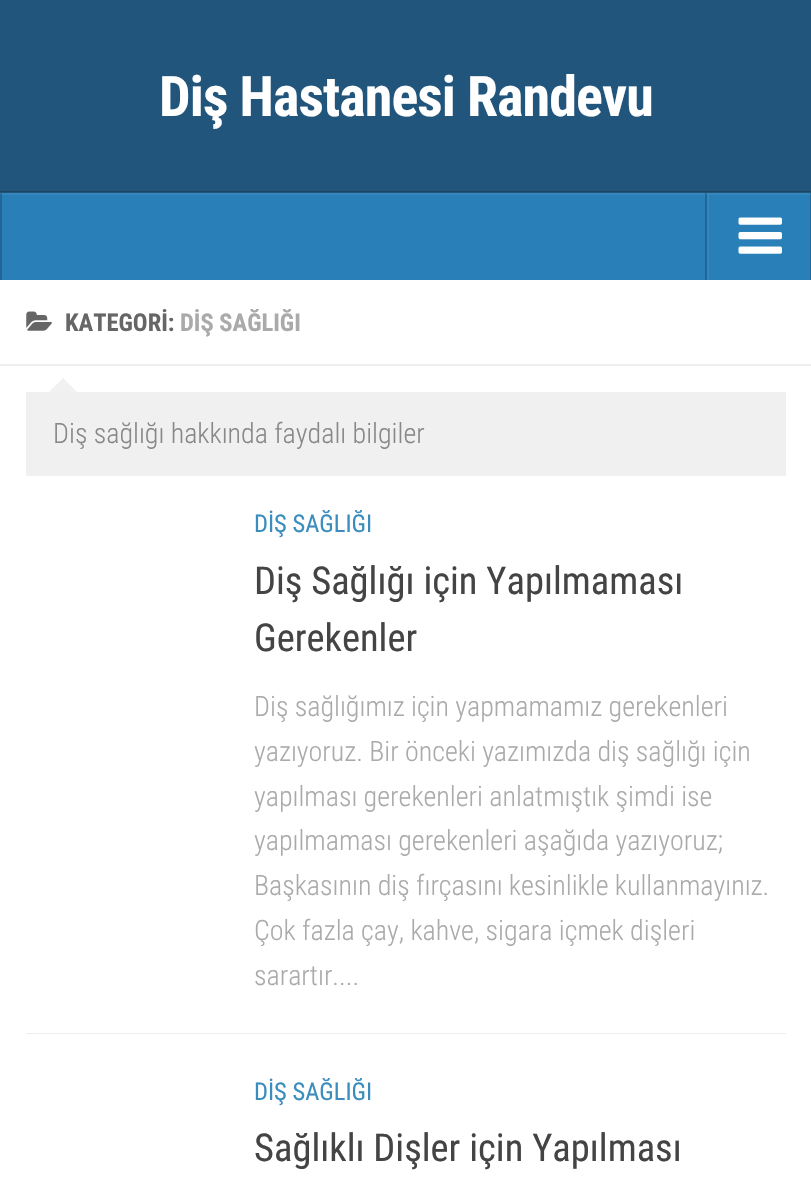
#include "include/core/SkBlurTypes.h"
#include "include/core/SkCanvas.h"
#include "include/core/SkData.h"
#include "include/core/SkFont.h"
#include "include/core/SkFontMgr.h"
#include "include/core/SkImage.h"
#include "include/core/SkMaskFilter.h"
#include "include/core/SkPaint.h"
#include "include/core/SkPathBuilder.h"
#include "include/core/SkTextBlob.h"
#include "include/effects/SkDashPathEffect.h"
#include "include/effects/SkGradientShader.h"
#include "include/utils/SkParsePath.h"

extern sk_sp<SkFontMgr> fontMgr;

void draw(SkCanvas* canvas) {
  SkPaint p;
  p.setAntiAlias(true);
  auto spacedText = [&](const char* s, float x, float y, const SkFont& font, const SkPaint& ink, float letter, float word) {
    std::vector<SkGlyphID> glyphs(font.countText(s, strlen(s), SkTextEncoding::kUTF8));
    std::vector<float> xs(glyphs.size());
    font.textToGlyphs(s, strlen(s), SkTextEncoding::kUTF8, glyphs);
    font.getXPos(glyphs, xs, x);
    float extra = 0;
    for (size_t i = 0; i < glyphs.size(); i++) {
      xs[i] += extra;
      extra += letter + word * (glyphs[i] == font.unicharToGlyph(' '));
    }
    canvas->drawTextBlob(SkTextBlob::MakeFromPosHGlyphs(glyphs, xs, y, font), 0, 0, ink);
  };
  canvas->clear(SK_ColorWHITE);
  p.setColor(SkColorSetRGB(33, 85, 124));
  canvas->drawRect(SkRect::MakeLTRB(0, 0, 811, 193), p);
  p.setColor(SkColorSetRGB(26, 68, 99));
  canvas->drawRect(SkRect::MakeLTRB(0, 191, 811, 192), p);
  p.setColor(SkColorSetRGB(41, 128, 185));
  canvas->drawRect(SkRect::MakeLTRB(2, 195, 810, 280), p);
  p.setColor(SkColorSetRGB(52, 134, 189));
  canvas->drawRect(SkRect::MakeLTRB(707, 193, 709, 280), p);
  p.setColor(SkColorSetRGB(33, 102, 148));
  canvas->drawRect(SkRect::MakeLTRB(705, 193, 707, 280), p);
  p.setColor(SkColorSetRGB(52, 134, 189));
  canvas->drawRect(SkRect::MakeLTRB(0, 193, 811, 195), p);
  p.setColor(SkColorSetRGB(62, 140, 192));
  canvas->drawRect(SkRect::MakeLTRB(707, 193, 709, 195), p);
  p.setColor(SkColorSetRGB(42, 107, 151));
  canvas->drawRect(SkRect::MakeLTRB(705, 193, 707, 195), p);
  p.setColor(SkColorSetRGB(33, 102, 148));
  canvas->drawRect(SkRect::MakeLTRB(810, 193, 811, 280), p);
  p.setColor(SkColorSetRGB(44, 110, 153));
  canvas->drawRect(SkRect::MakeLTRB(810, 193, 811, 195), p);
  p.setColor(SkColorSetRGB(33, 102, 148));
  canvas->drawRect(SkRect::MakeLTRB(0, 193, 2, 280), p);
  p.setColor(SkColorSetRGB(44, 110, 153));
  canvas->drawRect(SkRect::MakeLTRB(0, 193, 2, 195), p);
  canvas->drawImageRect(SkImages::DeferredFromEncodedData(SkData::MakeFromFileName("images/1.png")), SkRect::MakeLTRB(738, 217, 782, 254), SkSamplingOptions());
  p.setColor(SkColorSetRGB(238, 238, 238));
  canvas->drawRect(SkRect::MakeLTRB(0, 364, 811, 366), p);
  canvas->drawImageRect(SkImages::DeferredFromEncodedData(SkData::MakeFromFileName("images/2.png")), SkRect::MakeLTRB(26, 311, 52, 331), SkSamplingOptions());
  p.setColor(SkColorSetRGB(240, 240, 240));
  canvas->drawRect(SkRect::MakeLTRB(26, 392, 786, 476), p);
  p.setColor(SkColorSetRGB(241, 241, 241));
  canvas->drawPath(SkPathBuilder().moveTo(77, 392).lineTo(49, 392).lineTo(63, 378).close().detach(), p);
  p.setColor(SkColorSetRGB(238, 238, 238));
  canvas->drawRect(SkRect::MakeLTRB(26, 1033, 786, 1034), p);
  SkFont font1(fontMgr->matchFamilyStyle("Roboto Condensed", SkFontStyle::Bold()), 56);
  font1.setSubpixel(true);
  p.setColor(SK_ColorWHITE);
  spacedText("Diş Hastanesi Randevu", 159, 116, font1, p, -0.9f, 0);
  SkFont font2(fontMgr->matchFamilyStyle("Roboto Condensed", SkFontStyle::Bold()), 24.5f);
  font2.setSubpixel(true);
  p.setColor(SkColorSetRGB(102, 102, 102));
  canvas->drawString("KATEGORİ:", 65, 331, font2, p);
  p.setColor(SkColorSetRGB(170, 170, 170));
  canvas->drawString("DİŞ SAĞLIĞI", 180, 331, font2, p);
  SkFont font3(fontMgr->matchFamilyStyle("Roboto Condensed", SkFontStyle(300, SkFontStyle::kNormal_Width, SkFontStyle::kUpright_Slant)), 28);
  font3.setSubpixel(true);
  p.setColor(SkColorSetRGB(136, 136, 136));
  canvas->drawString("Diş sağlığı hakkında faydalı bilgiler", 53, 443, font3, p);
  SkFont font4(fontMgr->matchFamilyStyle("Roboto Condensed", SkFontStyle::Normal()), 24.5f);
  font4.setSubpixel(true);
  p.setColor(SkColorSetRGB(59, 141, 189));
  canvas->drawString("DİŞ SAĞLIĞI", 254, 532, font4, p);
  SkFont font5(fontMgr->matchFamilyStyle("Roboto Condensed", SkFontStyle::Normal()), 38.5f);
  font5.setSubpixel(true);
  p.setColor(SkColorSetRGB(68, 68, 68));
  canvas->drawString("Diş Sağlığı için Yapılmaması", 254, 594, font5, p);
  canvas->drawString("Gerekenler", 254, 651, font5, p);
  p.setColor(SkColorSetRGB(170, 170, 170));
  canvas->drawString("Diş sağlığımız için yapmamamız gerekenleri", 254, 716, font3, p);
  canvas->drawString("yazıyoruz. Bir önceki yazımızda diş sağlığı için", 254, 761, font3, p);
  canvas->drawString("yapılması gerekenleri anlatmıştık şimdi ise", 254, 806, font3, p);
  canvas->drawString("yapılmaması gerekenleri aşağıda yazıyoruz;", 254, 850, font3, p);
  canvas->drawString("Başkasının diş fırçasını kesinlikle kullanmayınız.", 254, 895, font3, p);
  canvas->drawString("Çok fazla çay, kahve, sigara içmek dişleri", 254, 940, font3, p);
  canvas->drawString("sarartır....", 254, 985, font3, p);
  p.setColor(SkColorSetRGB(59, 141, 189));
  canvas->drawString("DİŞ SAĞLIĞI", 254, 1100, font4, p);
  p.setColor(SkColorSetRGB(68, 68, 68));
  canvas->drawString("Sağlıklı Dişler için Yapılması", 254, 1161, font5, p);
}
